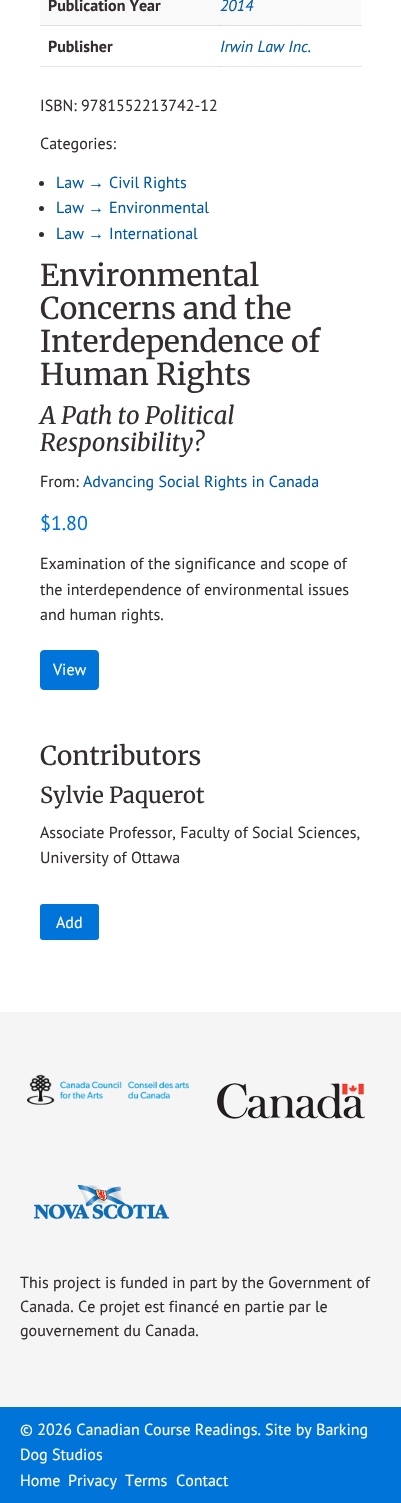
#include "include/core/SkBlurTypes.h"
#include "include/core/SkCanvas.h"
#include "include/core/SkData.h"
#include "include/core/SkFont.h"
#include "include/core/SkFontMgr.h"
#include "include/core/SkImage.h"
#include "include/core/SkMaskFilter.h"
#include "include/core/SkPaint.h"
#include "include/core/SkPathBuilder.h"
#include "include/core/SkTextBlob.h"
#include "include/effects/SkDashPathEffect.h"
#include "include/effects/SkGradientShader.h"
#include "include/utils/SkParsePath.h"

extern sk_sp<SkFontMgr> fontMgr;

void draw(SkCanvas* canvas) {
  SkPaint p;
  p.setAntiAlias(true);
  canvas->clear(SK_ColorWHITE);
  p.setColor(SkColorSetRGB(230, 230, 230));
  canvas->drawRect(SkRect::MakeLTRB(361, 25, 362, 26), p);
  canvas->drawRect(SkRect::MakeLTRB(40, 66, 362, 67), p);
  p.setColor(SkColorSetRGB(249, 249, 249));
  canvas->drawRect(SkRect::MakeLTRB(40, 0, 361, 25), p);
  p.setColor(SkColorSetRGB(224, 224, 224));
  canvas->drawRect(SkRect::MakeLTRB(40, 25, 361, 26), p);
  p.setColor(SkColorSetRGB(202, 202, 202));
  canvas->drawRect(SkRect::MakeLTRB(220, 25, 221, 26), p);
  p.setColor(SkColorSetRGB(207, 207, 207));
  canvas->drawRect(SkRect::MakeLTRB(220, 66, 221, 67), p);
  p.setColor(SkColorSetRGB(51, 45, 49));
  canvas->drawCircle(41.5f, 183.5f, 2.5f, p);
  canvas->drawCircle(41.5f, 208.5f, 2.5f, p);
  canvas->drawCircle(41.5f, 234.5f, 2.5f, p);
  p.setColor(SkColorSetRGB(0, 116, 217));
  canvas->drawRoundRect(SkRect::MakeLTRB(40.5f, 650.5f, 98.5f, 689.5f), 3.5f, 3.5f, p);
  p.setStyle(SkPaint::kStroke_Style);
  p.setStrokeWidth(1);
  canvas->drawRoundRect(SkRect::MakeLTRB(40.5f, 650.5f, 98.5f, 689.5f), 3.5f, 3.5f, p);
  p.setStyle(SkPaint::kFill_Style);
  canvas->drawRoundRect(SkRect::MakeLTRB(40, 904, 99, 940), 3, 3, p);
  p.setColor(SkColorSetRGB(245, 245, 245));
  canvas->drawRect(SkRect::MakeLTRB(0, 1012, 401, 1407), p);
  canvas->drawImageRect(SkImages::DeferredFromEncodedData(SkData::MakeFromFileName("images/1.png")), SkRect::MakeLTRB(27, 1074, 189, 1105), SkSamplingOptions());
  canvas->drawImageRect(SkImages::DeferredFromEncodedData(SkData::MakeFromFileName("images/2.png")), SkRect::MakeLTRB(217, 1083, 365, 1119), SkSamplingOptions());
  canvas->drawImageRect(SkImages::DeferredFromEncodedData(SkData::MakeFromFileName("images/3.png")), SkRect::MakeLTRB(34, 1185, 169, 1219), SkSamplingOptions());
  p.setColor(SkColorSetRGB(0, 116, 217));
  canvas->drawRect(SkRect::MakeLTRB(0, 1407, 401, 1503), p);
  SkFont font1(fontMgr->matchFamilyStyle("PT Sans", SkFontStyle::Bold()), 16);
  font1.setSubpixel(true);
  p.setColor(SkColorSetRGB(51, 45, 49));
  canvas->drawString("Publication Year", 48, 11, font1, p);
  SkFont font2(fontMgr->matchFamilyStyle("PT Sans", SkFontStyle::Italic()), 16);
  font2.setSubpixel(true);
  p.setColor(SkColorSetRGB(0, 89, 166));
  canvas->drawString("2014", 220, 11, font2, p);
  p.setColor(SkColorSetRGB(51, 45, 49));
  canvas->drawString("Publisher", 48, 52, font1, p);
  p.setColor(SkColorSetRGB(0, 89, 166));
  canvas->drawString("Irwin Law Inc.", 220, 52, font2, p);
  SkFont font3(fontMgr->matchFamilyStyle("PT Sans", SkFontStyle::Normal()), 16);
  font3.setSubpixel(true);
  p.setColor(SkColorSetRGB(51, 45, 49));
  canvas->drawString("ISBN: 9781552213742-12", 40, 111, font3, p);
  canvas->drawString("Categories:", 40, 149, font3, p);
  p.setColor(SkColorSetRGB(0, 89, 166));
  canvas->drawString("Law", 56, 188, font3, p);
  SkFont font4(fontMgr->matchFamilyStyle("Liberation Sans", SkFontStyle::Normal()), 16);
  font4.setSubpixel(true);
  canvas->drawString("→", 88, 188, font4, p);
  canvas->drawString("Civil Rights", 109, 188, font3, p);
  canvas->drawString("Law", 56, 213, font3, p);
  canvas->drawString("→", 88, 213, font4, p);
  canvas->drawString("Environmental", 109, 213, font3, p);
  canvas->drawString("Law", 56, 239, font3, p);
  canvas->drawString("→", 88, 239, font4, p);
  canvas->drawString("International", 109, 239, font3, p);
  SkFont font5(fontMgr->matchFamilyStyle("Merriweather", SkFontStyle::Normal()), 30);
  font5.setSubpixel(true);
  p.setColor(SkColorSetRGB(51, 45, 49));
  canvas->drawString("Environmental", 40, 286, font5, p);
  canvas->drawString("Concerns and the", 40, 319, font5, p);
  canvas->drawString("Interdependence of", 40, 352, font5, p);
  canvas->drawString("Human Rights", 40, 385, font5, p);
  SkFont font6(fontMgr->matchFamilyStyle("Merriweather", SkFontStyle::Italic()), 24);
  font6.setSubpixel(true);
  canvas->drawString("A Path to Political", 40, 424, font6, p);
  canvas->drawString("Responsibility?", 40, 451, font6, p);
  canvas->drawString("From:", 40, 487, font3, p);
  p.setColor(SkColorSetRGB(0, 89, 166));
  canvas->drawString("Advancing Social Rights in Canada", 83, 487, font3, p);
  SkFont font7(fontMgr->matchFamilyStyle("PT Sans", SkFontStyle::Normal()), 20);
  font7.setSubpixel(true);
  p.setColor(SkColorSetRGB(0, 116, 217));
  canvas->drawString("$1.80", 40, 530, font7, p);
  p.setColor(SkColorSetRGB(51, 45, 49));
  canvas->drawString("Examination of the significance and scope of", 40, 569, font3, p);
  canvas->drawString("the interdependence of environmental issues", 40, 595, font3, p);
  canvas->drawString("and human rights.", 40, 620, font3, p);
  p.setColor(SK_ColorWHITE);
  canvas->drawString("View", 53, 675, font3, p);
  SkFont font8(fontMgr->matchFamilyStyle("Merriweather", SkFontStyle::Normal()), 26);
  font8.setSubpixel(true);
  p.setColor(SkColorSetRGB(51, 45, 49));
  canvas->drawString("Contributors", 40, 765, font8, p);
  SkFont font9(fontMgr->matchFamilyStyle("Merriweather", SkFontStyle::Normal()), 22);
  font9.setSubpixel(true);
  canvas->drawString("Sylvie Paquerot", 40, 803, font9, p);
  canvas->drawString("Associate Professor, Faculty of Social Sciences,", 40, 838, font3, p);
  canvas->drawString("University of Ottawa", 40, 863, font3, p);
  p.setColor(SK_ColorWHITE);
  canvas->drawString("Add", 56, 928, font3, p);
  p.setColor(SkColorSetRGB(51, 45, 49));
  canvas->drawString("This project is funded in part by the Government of", 20, 1288, font3, p);
  canvas->drawString("Canada. Ce projet est financé en partie par le", 20, 1312, font3, p);
  canvas->drawString("gouvernement du Canada.", 20, 1336, font3, p);
  p.setColor(SK_ColorWHITE);
  canvas->drawString("© 2026 Canadian Course Readings. Site by Barking", 20, 1435, font3, p);
  canvas->drawString("Dog Studios", 20, 1460, font3, p);
  canvas->drawString("Home", 20, 1486, font3, p);
  canvas->drawString("Privacy", 68, 1486, font3, p);
  canvas->drawString("Terms", 125, 1486, font3, p);
  canvas->drawString("Contact", 176, 1486, font3, p);
}
